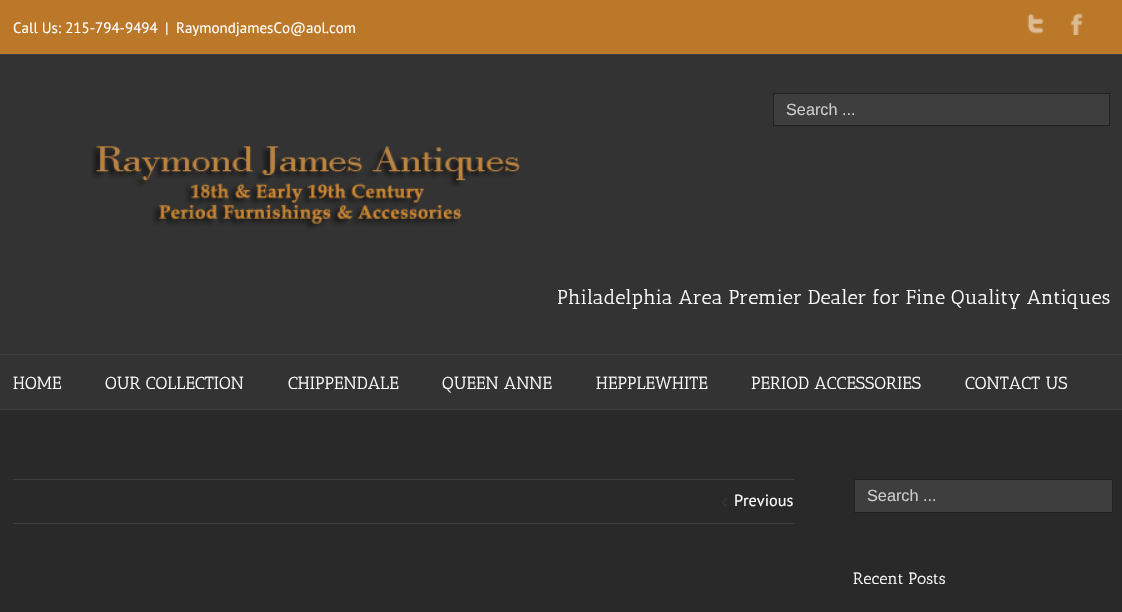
#include "include/core/SkBlurTypes.h"
#include "include/core/SkCanvas.h"
#include "include/core/SkData.h"
#include "include/core/SkFont.h"
#include "include/core/SkFontMgr.h"
#include "include/core/SkImage.h"
#include "include/core/SkMaskFilter.h"
#include "include/core/SkPaint.h"
#include "include/core/SkPathBuilder.h"
#include "include/core/SkTextBlob.h"
#include "include/effects/SkDashPathEffect.h"
#include "include/effects/SkGradientShader.h"
#include "include/utils/SkParsePath.h"

extern sk_sp<SkFontMgr> fontMgr;

void draw(SkCanvas* canvas) {
  SkPaint p;
  p.setAntiAlias(true);
  canvas->clear(SkColorSetRGB(41, 41, 42));
  p.setColor(SkColorSetRGB(186, 120, 40));
  canvas->drawRect(SkRect::MakeLTRB(0, 0, 1122, 54), p);
  p.setColor(SkColorSetRGB(62, 62, 62));
  canvas->drawRect(SkRect::MakeLTRB(0, 54, 1122, 55), p);
  canvas->drawImageRect(SkImages::DeferredFromEncodedData(SkData::MakeFromFileName("images/1.png")), SkRect::MakeLTRB(1027, 13, 1044, 34), SkSamplingOptions());
  canvas->drawImageRect(SkImages::DeferredFromEncodedData(SkData::MakeFromFileName("images/2.png")), SkRect::MakeLTRB(1071, 13, 1083, 35), SkSamplingOptions());
  p.setColor(SkColorSetRGB(51, 51, 51));
  canvas->drawRect(SkRect::MakeLTRB(0, 55, 1122, 354), p);
  p.setColor(SkColorSetRGB(62, 62, 62));
  canvas->drawRect(SkRect::MakeLTRB(0, 354, 1122, 355), p);
  canvas->drawRect(SkRect::MakeLTRB(773.5f, 93.5f, 1109.5f, 125.5f), p);
  p.setStyle(SkPaint::kStroke_Style);
  p.setStrokeWidth(1);
  p.setColor(SkColorSetRGB(33, 33, 34));
  canvas->drawRect(SkRect::MakeLTRB(773.5f, 93.5f, 1109.5f, 125.5f), p);
  canvas->drawImageRect(SkImages::DeferredFromEncodedData(SkData::MakeFromFileName("images/3.png")), SkRect::MakeLTRB(91, 146, 520, 230), SkSamplingOptions());
  p.setStyle(SkPaint::kFill_Style);
  p.setColor(SkColorSetRGB(51, 51, 51));
  canvas->drawRect(SkRect::MakeLTRB(0, 355, 1122, 409), p);
  p.setColor(SkColorSetRGB(62, 62, 62));
  canvas->drawRect(SkRect::MakeLTRB(0, 409, 1122, 410), p);
  canvas->drawRect(SkRect::MakeLTRB(13, 479, 794, 480), p);
  canvas->drawRect(SkRect::MakeLTRB(13, 523, 794, 524), p);
  canvas->drawImageRect(SkImages::DeferredFromEncodedData(SkData::MakeFromFileName("images/4.png")), SkRect::MakeLTRB(722, 498, 727, 507), SkSamplingOptions());
  canvas->drawRect(SkRect::MakeLTRB(854.5f, 479.5f, 1112.5f, 512.5f), p);
  p.setStyle(SkPaint::kStroke_Style);
  p.setColor(SkColorSetRGB(33, 33, 34));
  canvas->drawRect(SkRect::MakeLTRB(854.5f, 479.5f, 1112.5f, 512.5f), p);
  SkFont font1(fontMgr->matchFamilyStyle("PT Sans", SkFontStyle::Normal()), 15);
  font1.setSubpixel(true);
  p.setStyle(SkPaint::kFill_Style);
  p.setColor(SK_ColorWHITE);
  canvas->drawString("Call Us: 215-794-9494", 13, 33, font1, p);
  canvas->drawString("|", 165, 33, font1, p);
  canvas->drawString("RaymondjamesCo@aol.com", 176, 33, font1, p);
  SkFont font2(fontMgr->matchFamilyStyle("Liberation Sans", SkFontStyle::Normal()), 16.25f);
  font2.setSubpixel(true);
  p.setColor(SkColorSetRGB(204, 204, 204));
  canvas->drawString("Search ...", 786, 115, font2, p);
  SkFont font3(fontMgr->matchFamilyStyle("Antic Slab", SkFontStyle::Normal()), 20);
  font3.setSubpixel(true);
  p.setColor(SK_ColorWHITE);
  canvas->drawString("Philadelphia Area Premier Dealer for Fine Quality Antiques", 557, 304, font3, p);
  SkFont font4(fontMgr->matchFamilyStyle("Antic Slab", SkFontStyle::Normal()), 17.5f);
  font4.setSubpixel(true);
  canvas->drawString("HOME", 13, 389, font4, p);
  canvas->drawString("OUR COLLECTION", 105, 389, font4, p);
  canvas->drawString("CHIPPENDALE", 288, 389, font4, p);
  canvas->drawString("QUEEN ANNE", 442, 389, font4, p);
  canvas->drawString("HEPPLEWHITE", 596, 389, font4, p);
  canvas->drawString("PERIOD ACCESSORIES", 751, 389, font4, p);
  canvas->drawString("CONTACT US", 965, 389, font4, p);
  SkFont font5(fontMgr->matchFamilyStyle("PT Sans", SkFontStyle::Normal()), 16.25f);
  font5.setSubpixel(true);
  canvas->drawString("Previous", 734, 506, font5, p);
  p.setColor(SkColorSetRGB(204, 204, 204));
  canvas->drawString("Search ...", 867, 501, font2, p);
  SkFont font6(fontMgr->matchFamilyStyle("Antic Slab", SkFontStyle::Normal()), 16.25f);
  font6.setSubpixel(true);
  p.setColor(SK_ColorWHITE);
  canvas->drawString("Recent Posts", 853, 584, font6, p);
}
